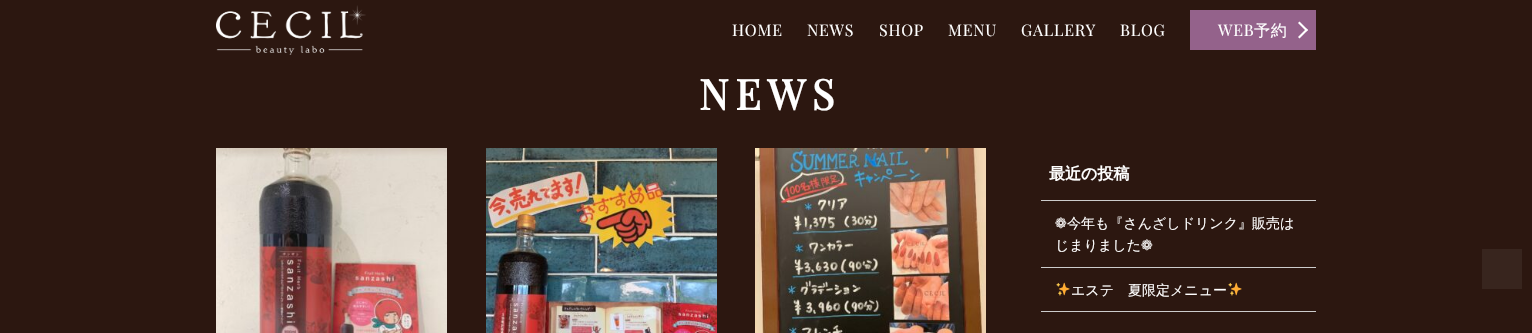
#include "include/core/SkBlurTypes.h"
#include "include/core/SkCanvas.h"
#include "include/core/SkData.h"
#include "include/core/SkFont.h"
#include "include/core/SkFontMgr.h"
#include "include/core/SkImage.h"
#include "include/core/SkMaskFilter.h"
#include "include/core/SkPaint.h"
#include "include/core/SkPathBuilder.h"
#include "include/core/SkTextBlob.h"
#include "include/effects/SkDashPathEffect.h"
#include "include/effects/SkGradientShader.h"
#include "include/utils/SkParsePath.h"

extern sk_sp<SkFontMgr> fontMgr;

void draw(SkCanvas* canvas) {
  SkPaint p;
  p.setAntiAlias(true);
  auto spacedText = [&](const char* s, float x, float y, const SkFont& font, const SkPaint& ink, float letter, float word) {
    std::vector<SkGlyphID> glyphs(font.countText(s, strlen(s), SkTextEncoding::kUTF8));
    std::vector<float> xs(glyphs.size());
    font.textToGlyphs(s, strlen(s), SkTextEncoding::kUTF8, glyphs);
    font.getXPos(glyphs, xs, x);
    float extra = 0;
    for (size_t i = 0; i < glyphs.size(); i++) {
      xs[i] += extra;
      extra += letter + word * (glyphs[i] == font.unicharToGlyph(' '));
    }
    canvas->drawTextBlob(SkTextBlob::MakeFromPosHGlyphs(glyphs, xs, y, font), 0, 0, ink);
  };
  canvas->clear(SkColorSetRGB(44, 23, 16));
  canvas->drawImageRect(SkImages::DeferredFromEncodedData(SkData::MakeFromFileName("images/1.png")), SkRect::MakeLTRB(216, 5, 366, 55), SkSamplingOptions());
  p.setColor(SkColorSetRGB(148, 98, 139));
  canvas->drawRect(SkRect::MakeLTRB(1190, 10, 1316, 50), p);
  p.setColor(SK_ColorWHITE);
  canvas->drawPath(SkPathBuilder().moveTo(1298, 23).lineTo(1299.5f, 21.5f).lineTo(1308, 30).lineTo(1306.5f, 31.5f).close().detach(), p);
  canvas->drawPath(SkPathBuilder().moveTo(1298, 37).lineTo(1306.5f, 28.5f).lineTo(1308, 30).lineTo(1299.5f, 38.5f).close().detach(), p);
  canvas->drawImageRect(SkImages::DeferredFromEncodedData(SkData::MakeFromFileName("images/2.png")), SkRect::MakeLTRB(216, 148, 447, 333), SkSamplingOptions());
  canvas->drawImageRect(SkImages::DeferredFromEncodedData(SkData::MakeFromFileName("images/3.png")), SkRect::MakeLTRB(486, 148, 717, 333), SkSamplingOptions());
  canvas->drawImageRect(SkImages::DeferredFromEncodedData(SkData::MakeFromFileName("images/4.png")), SkRect::MakeLTRB(755, 148, 986, 333), SkSamplingOptions());
  p.setColor(SkColorSetRGB(204, 204, 204));
  canvas->drawRect(SkRect::MakeLTRB(1041, 200, 1316, 201), p);
  canvas->drawRect(SkRect::MakeLTRB(1041, 267, 1316, 268), p);
  canvas->drawImageRect(SkImages::DeferredFromEncodedData(SkData::MakeFromFileName("images/5.png")), SkRect::MakeLTRB(1056, 282, 1070, 296), SkSamplingOptions());
  canvas->drawImageRect(SkImages::DeferredFromEncodedData(SkData::MakeFromFileName("images/5.png")), SkRect::MakeLTRB(1228, 282, 1242, 296), SkSamplingOptions());
  canvas->drawRect(SkRect::MakeLTRB(1041, 311, 1316, 312), p);
  p.setColor(SkColorSetRGB(56, 37, 30));
  canvas->drawRect(SkRect::MakeLTRB(1482, 249, 1522, 289), p);
  SkFont font1(fontMgr->matchFamilyStyle("Playfair Display", SkFontStyle::Normal()), 16);
  font1.setSubpixel(true);
  p.setColor(SK_ColorWHITE);
  spacedText("HOME", 732, 36, font1, p, 0.75f, 0);
  spacedText("NEWS", 807, 36, font1, p, 0.75f, 0);
  spacedText("SHOP", 879, 36, font1, p, 0.75f, 0);
  spacedText("MENU", 948, 36, font1, p, 0.75f, 0);
  spacedText("GALLERY", 1021, 36, font1, p, 0.75f, 0);
  spacedText("BLOG", 1120, 36, font1, p, 0.75f, 0);
  spacedText("WEB", 1218, 36, font1, p, 0.75f, 0);
  SkFont font2(fontMgr->matchFamilyStyle("WenQuanYi Zen Hei", SkFontStyle(500, SkFontStyle::kNormal_Width, SkFontStyle::kUpright_Slant)), 16);
  font2.setSubpixel(true);
  spacedText("予約", 1254, 36, font2, p, 0.75f, 0);
  SkFont font3(fontMgr->matchFamilyStyle("Playfair Display", SkFontStyle::Bold()), 42);
  font3.setSubpixel(true);
  spacedText("NEWS", 699, 110, font3, p, 6.5f, 0);
  SkFont font4(fontMgr->matchFamilyStyle("WenQuanYi Zen Hei", SkFontStyle::Bold()), 16);
  font4.setSubpixel(true);
  canvas->drawString("最近の投稿", 1049, 179, font4, p);
  SkFont font5(fontMgr->matchFamilyStyle("DejaVu Sans", SkFontStyle::Normal()), 14);
  font5.setSubpixel(true);
  canvas->drawString("❁", 1055, 228, font5, p);
  SkFont font6(fontMgr->matchFamilyStyle("WenQuanYi Zen Hei", SkFontStyle(500, SkFontStyle::kNormal_Width, SkFontStyle::kUpright_Slant)), 14);
  font6.setSubpixel(true);
  canvas->drawString("今年も『さんざしドリンク』販売は", 1067, 228, font6, p);
  canvas->drawString("じまりました", 1055, 250, font6, p);
  canvas->drawString("❁", 1141, 250, font5, p);
  canvas->drawString("エステ　夏限定メニュー", 1071, 295, font6, p);
}
